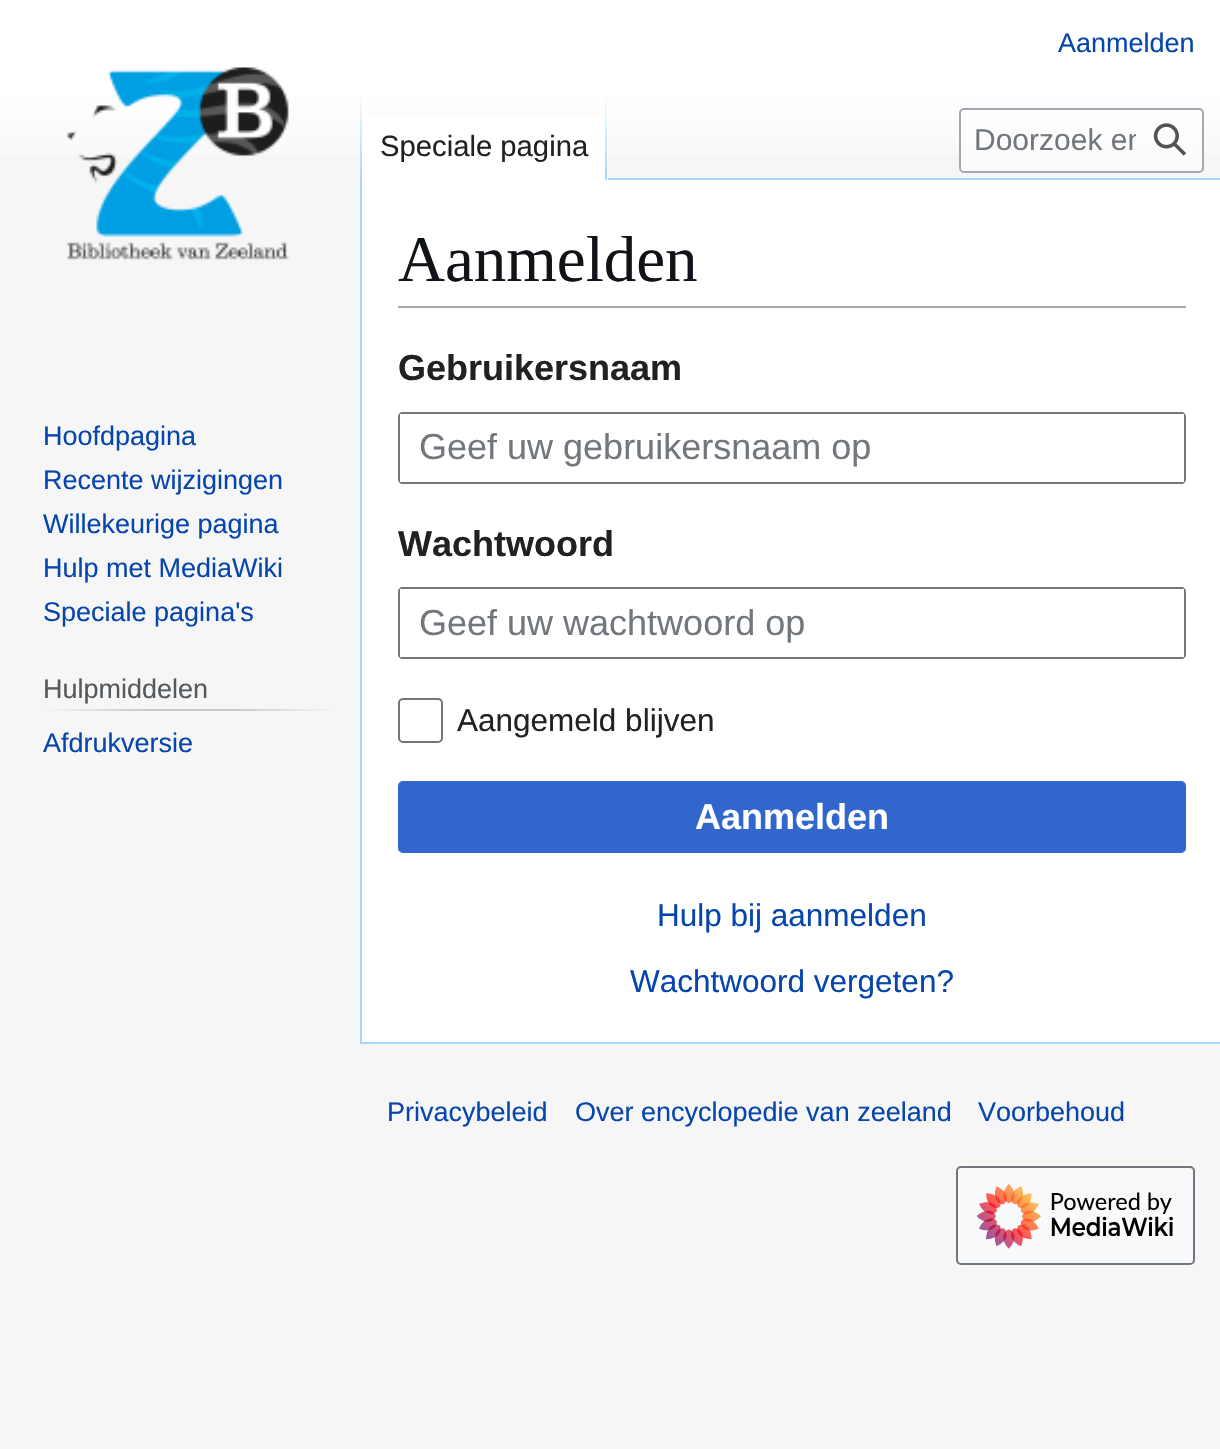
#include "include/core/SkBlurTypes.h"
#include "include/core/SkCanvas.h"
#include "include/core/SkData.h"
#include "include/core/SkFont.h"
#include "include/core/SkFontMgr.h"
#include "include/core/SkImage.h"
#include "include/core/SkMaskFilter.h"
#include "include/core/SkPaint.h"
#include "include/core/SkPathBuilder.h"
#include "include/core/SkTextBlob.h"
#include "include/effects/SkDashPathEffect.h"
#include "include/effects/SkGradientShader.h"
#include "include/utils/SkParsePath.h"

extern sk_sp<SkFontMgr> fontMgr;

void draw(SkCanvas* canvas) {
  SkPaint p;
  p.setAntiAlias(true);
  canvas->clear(SkColorSetRGB(246, 246, 246));
  {
    const SkColor colors[] = {SK_ColorWHITE, SkColorSetRGB(246, 246, 246)};
    const float stops[] = {0.5f, 1};
    const SkPoint ends[] = {{611, 0}, {611, 180}};
    p.setShader(SkGradientShader::MakeLinear(ends, colors, stops, 2, SkTileMode::kClamp));
    p.setAlpha(255);
  }
  canvas->drawRect(SkRect::MakeLTRB(0, 0, 1220, 155), p);
  p.setShader(nullptr);
  p.setColor(SkColorSetRGB(167, 215, 249));
  canvas->drawRect(SkRect::MakeLTRB(360, 1042, 1220, 1044), p);
  canvas->drawRect(SkRect::MakeLTRB(360, 178, 362, 1044), p);
  {
    const SkColor colors[] = {SkColorSetARGB(0, 167, 215, 249), SkColorSetRGB(167, 215, 249)};
    const float stops[] = {0, 1};
    const SkPoint ends[] = {{361, 90}, {361, 180}};
    p.setShader(SkGradientShader::MakeLinear(ends, colors, stops, 2, SkTileMode::kClamp));
    p.setAlpha(255);
  }
  canvas->drawRect(SkRect::MakeLTRB(360, 90, 362, 180), p);
  p.setShader(nullptr);
  p.setColor(SK_ColorWHITE);
  canvas->drawRect(SkRect::MakeLTRB(362, 115, 608, 180), p);
  {
    const SkColor colors[] = {SK_ColorWHITE, SkColorSetRGB(167, 215, 249)};
    const float stops[] = {0, 1};
    const SkPoint ends[] = {{606, 90}, {606, 180}};
    p.setShader(SkGradientShader::MakeLinear(ends, colors, stops, 2, SkTileMode::kClamp));
    p.setAlpha(255);
  }
  canvas->drawRect(SkRect::MakeLTRB(605, 90, 607, 180), p);
  p.setShader(nullptr);
  p.setColor(SkColorSetARGB(128, 255, 255, 255));
  canvas->drawRoundRect(SkRect::MakeLTRB(960, 109, 1203, 172), 4, 4, p);
  p.setStyle(SkPaint::kStroke_Style);
  p.setStrokeWidth(2);
  p.setColor(SkColorSetRGB(162, 169, 177));
  canvas->drawRoundRect(SkRect::MakeLTRB(960, 109, 1203, 172), 4, 4, p);
  canvas->drawImageRect(SkImages::DeferredFromEncodedData(SkData::MakeFromFileName("images/1.png")), SkRect::MakeLTRB(1153, 123, 1187, 156), SkSamplingOptions());
  canvas->drawImageRect(SkImages::DeferredFromEncodedData(SkData::MakeFromFileName("images/2.png")), SkRect::MakeLTRB(67, 67, 289, 260), SkSamplingOptions());
  p.setStyle(SkPaint::kFill_Style);
  {
    const SkColor colors[] = {SkColorSetRGB(246, 246, 246), SkColorSetRGB(200, 204, 209), SkColorSetRGB(200, 204, 209), SkColorSetRGB(246, 246, 246)};
    const float stops[] = {0, 0.33f, 0.66f, 1};
    const SkPoint ends[] = {{43, 710}, {338, 710}};
    p.setShader(SkGradientShader::MakeLinear(ends, colors, stops, 4, SkTileMode::kClamp));
    p.setAlpha(255);
  }
  canvas->drawRect(SkRect::MakeLTRB(43, 709, 338, 711), p);
  p.setShader(nullptr);
  p.setColor(SK_ColorWHITE);
  canvas->drawRect(SkRect::MakeLTRB(362, 180, 1220, 1042), p);
  p.setColor(SkColorSetRGB(167, 215, 249));
  canvas->drawRect(SkRect::MakeLTRB(608, 178, 1220, 180), p);
  p.setColor(SkColorSetRGB(162, 169, 177));
  canvas->drawRect(SkRect::MakeLTRB(398, 306, 1186, 308), p);
  p.setColor(SkColorSetRGB(114, 119, 125));
  canvas->drawPath(SkPathBuilder(SkPathFillType::kEvenOdd).moveTo(403, 412).cubicTo(400, 412, 398, 414, 398, 417).lineTo(398, 479).cubicTo(398, 482, 400, 484, 403, 484).lineTo(1181, 484).cubicTo(1184, 484, 1186, 482, 1186, 479).lineTo(1186, 417).cubicTo(1186, 414, 1184, 412, 1181, 412).close().moveTo(400, 414).lineTo(400, 482).lineTo(1184, 482).lineTo(1184, 414).close().detach(), p);
  canvas->drawPath(SkPathBuilder(SkPathFillType::kEvenOdd).moveTo(403, 587).cubicTo(400, 587, 398, 589, 398, 592).lineTo(398, 654).cubicTo(398, 657, 400, 659, 403, 659).lineTo(1181, 659).cubicTo(1184, 659, 1186, 657, 1186, 654).lineTo(1186, 592).cubicTo(1186, 589, 1184, 587, 1181, 587).close().moveTo(400, 589).lineTo(400, 657).lineTo(1184, 657).lineTo(1184, 589).close().detach(), p);
  p.setStyle(SkPaint::kStroke_Style);
  canvas->drawRoundRect(SkRect::MakeLTRB(399, 699, 442, 742), 4, 4, p);
  p.setStyle(SkPaint::kFill_Style);
  p.setColor(SkColorSetRGB(51, 102, 204));
  canvas->drawRoundRect(SkRect::MakeLTRB(398, 781, 1186, 853), 5, 5, p);
  p.setColor(SkColorSetRGB(248, 249, 250));
  canvas->drawRoundRect(SkRect::MakeLTRB(957, 1167, 1194, 1264), 4, 4, p);
  p.setStyle(SkPaint::kStroke_Style);
  p.setColor(SkColorSetRGB(114, 119, 125));
  canvas->drawRoundRect(SkRect::MakeLTRB(957, 1167, 1194, 1264), 4, 4, p);
  canvas->drawImageRect(SkImages::DeferredFromEncodedData(SkData::MakeFromFileName("images/3.png")), SkRect::MakeLTRB(977, 1183, 1173, 1249), SkSamplingOptions());
  SkFont font1(fontMgr->matchFamilyStyle("Liberation Sans", SkFontStyle::Normal()), 27);
  font1.setSubpixel(true);
  p.setStyle(SkPaint::kFill_Style);
  p.setColor(SkColorSetRGB(6, 69, 173));
  canvas->drawString("Aanmelden", 1058, 52, font1, p);
  SkFont font2(fontMgr->matchFamilyStyle("Liberation Sans", SkFontStyle::Normal()), 29.25f);
  font2.setSubpixel(true);
  p.setColor(SkColorSetRGB(32, 33, 34));
  canvas->drawString("Speciale pagina", 380, 156, font2, p);
  canvas->save();
  canvas->clipRect(SkRect::MakeLTRB(974, 124, 1136, 158));
  SkFont font3(fontMgr->matchFamilyStyle("Liberation Sans", SkFontStyle::Normal()), 30);
  font3.setSubpixel(true);
  p.setColor(SkColorSetRGB(114, 119, 125));
  canvas->drawString("Doorzoek en", 974, 150, font3, p);
  canvas->restore();
  p.setColor(SkColorSetRGB(6, 69, 173));
  canvas->drawString("Hoofdpagina", 43, 445, font1, p);
  canvas->drawString("Recente wijzigingen", 43, 489, font1, p);
  canvas->drawString("Willekeurige pagina", 43, 533, font1, p);
  canvas->drawString("Hulp met MediaWiki", 43, 577, font1, p);
  canvas->drawString("Speciale pagina's", 43, 621, font1, p);
  p.setColor(SkColorSetRGB(84, 89, 93));
  canvas->drawString("Hulpmiddelen", 43, 698, font1, p);
  p.setColor(SkColorSetRGB(6, 69, 173));
  canvas->drawString("Afdrukversie", 43, 752, font1, p);
  SkFont font4(fontMgr->matchFamilyStyle("Liberation Serif", SkFontStyle::Normal()), 65);
  font4.setSubpixel(true);
  p.setColor(SkColorSetRGB(16, 20, 24));
  canvas->drawString("Aanmelden", 398, 281, font4, p);
  SkFont font5(fontMgr->matchFamilyStyle("Liberation Sans", SkFontStyle::Bold()), 36);
  font5.setSubpixel(true);
  p.setColor(SkColorSetRGB(32, 33, 34));
  canvas->drawString("Gebruikersnaam", 398, 380, font5, p);
  SkFont font6(fontMgr->matchFamilyStyle("Liberation Sans", SkFontStyle::Normal()), 36);
  font6.setSubpixel(true);
  p.setColor(SkColorSetRGB(114, 119, 125));
  canvas->drawString("Geef uw gebruikersnaam op", 419, 459, font6, p);
  p.setColor(SkColorSetRGB(32, 33, 34));
  canvas->drawString("Wachtwoord", 398, 556, font5, p);
  p.setColor(SkColorSetRGB(114, 119, 125));
  canvas->drawString("Geef uw wachtwoord op", 419, 635, font6, p);
  SkFont font7(fontMgr->matchFamilyStyle("Liberation Sans", SkFontStyle::Normal()), 31.5f);
  font7.setSubpixel(true);
  p.setColor(SkColorSetRGB(32, 33, 34));
  canvas->drawString("Aangemeld blijven", 457, 731, font7, p);
  p.setColor(SK_ColorWHITE);
  canvas->drawString("Aanmelden", 695, 829, font5, p);
  p.setColor(SkColorSetRGB(6, 69, 173));
  canvas->drawString("Hulp bij aanmelden", 657, 926, font7, p);
  canvas->drawString("Wachtwoord vergeten?", 630, 992, font7, p);
  canvas->drawString("Privacybeleid", 387, 1121, font1, p);
  canvas->drawString("Over encyclopedie van zeeland", 575, 1121, font1, p);
  canvas->drawString("Voorbehoud", 978, 1121, font1, p);
}
